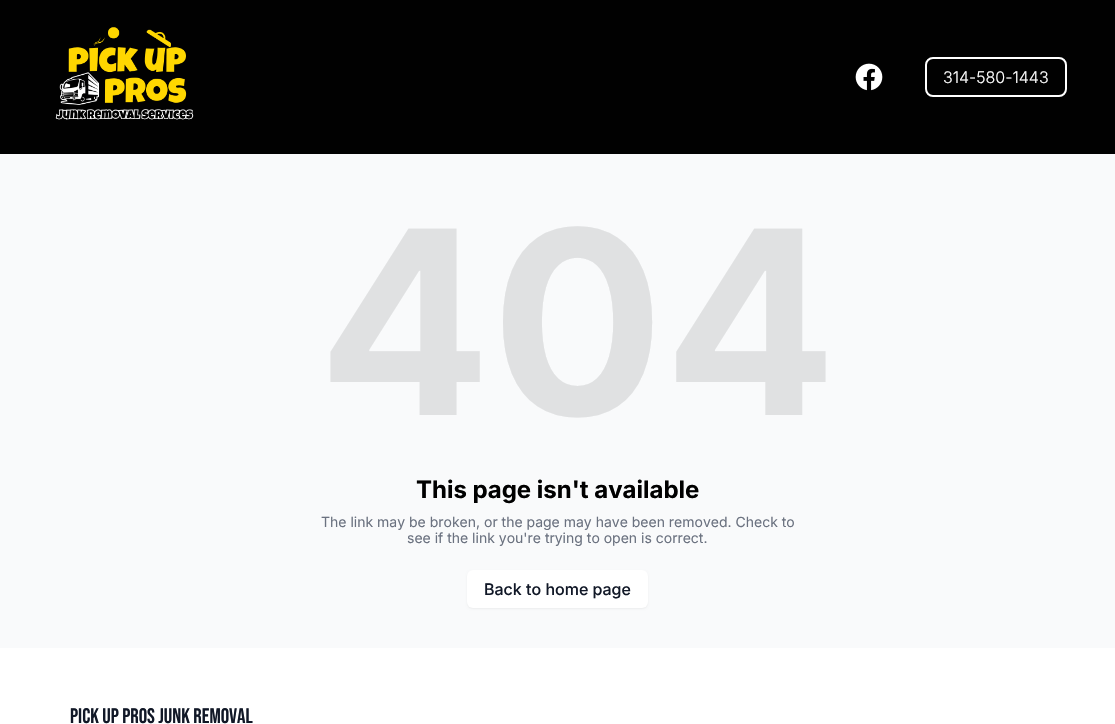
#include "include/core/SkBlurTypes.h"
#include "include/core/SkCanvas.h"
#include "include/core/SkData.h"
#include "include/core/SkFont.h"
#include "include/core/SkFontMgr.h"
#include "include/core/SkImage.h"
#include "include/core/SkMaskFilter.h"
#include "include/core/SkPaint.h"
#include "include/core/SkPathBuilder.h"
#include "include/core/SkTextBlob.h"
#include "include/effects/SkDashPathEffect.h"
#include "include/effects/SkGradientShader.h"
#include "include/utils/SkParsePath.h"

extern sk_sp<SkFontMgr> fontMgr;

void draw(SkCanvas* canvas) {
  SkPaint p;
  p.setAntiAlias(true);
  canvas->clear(SK_ColorWHITE);
  p.setColor(SkColorSetRGB(1, 1, 1));
  canvas->drawRect(SkRect::MakeLTRB(0, 0, 1115, 154), p);
  canvas->drawImageRect(SkImages::DeferredFromEncodedData(SkData::MakeFromFileName("images/1.png")), SkRect::MakeLTRB(55, 27, 194, 120), SkSamplingOptions());
  canvas->drawImageRect(SkImages::DeferredFromEncodedData(SkData::MakeFromFileName("images/2.png")), SkRect::MakeLTRB(855, 63, 883, 91), SkSamplingOptions());
  p.setStyle(SkPaint::kStroke_Style);
  p.setStrokeWidth(2);
  p.setColor(SK_ColorWHITE);
  canvas->drawRoundRect(SkRect::MakeLTRB(926, 58, 1066, 96), 7, 7, p);
  p.setStyle(SkPaint::kFill_Style);
  p.setColor(SkColorSetRGB(249, 250, 251));
  canvas->drawRect(SkRect::MakeLTRB(0, 154, 1115, 648), p);
  p.setColor(SkColorSetARGB(13, 0, 0, 0));
  p.setMaskFilter(SkMaskFilter::MakeBlur(kNormal_SkBlurStyle, 1));
  canvas->drawRoundRect(SkRect::MakeLTRB(467, 571, 648, 609), 6, 6, p);
  p.setMaskFilter(nullptr);
  p.setColor(SK_ColorWHITE);
  canvas->drawRoundRect(SkRect::MakeLTRB(467, 570, 648, 608), 6, 6, p);
  SkFont font1(fontMgr->matchFamilyStyle("Inter", SkFontStyle(300, SkFontStyle::kNormal_Width, SkFontStyle::kUpright_Slant)), 16);
  font1.setSubpixel(true);
  canvas->drawString("314-580-1443", 943, 83, font1, p);
  SkFont font2(fontMgr->matchFamilyStyle("Inter", SkFontStyle::Bold()), 256);
  font2.setSubpixel(true);
  p.setColor(SkColorSetRGB(224, 225, 226));
  canvas->drawString("404", 318, 415, font2, p);
  SkFont font3(fontMgr->matchFamilyStyle("Inter", SkFontStyle::Bold()), 24);
  font3.setSubpixel(true);
  p.setColor(SK_ColorBLACK);
  canvas->drawString("This page isn't available", 416, 498, font3, p);
  SkFont font4(fontMgr->matchFamilyStyle("Inter", SkFontStyle::Normal()), 14);
  font4.setSubpixel(true);
  p.setColor(SkColorSetRGB(107, 114, 128));
  canvas->drawString("The link may be broken, or the page may have been removed. Check to", 321, 527, font4, p);
  canvas->drawString("see if the link you're trying to open is correct.", 407, 543, font4, p);
  SkFont font5(fontMgr->matchFamilyStyle("Inter", SkFontStyle(500, SkFontStyle::kNormal_Width, SkFontStyle::kUpright_Slant)), 16);
  font5.setSubpixel(true);
  p.setColor(SkColorSetRGB(17, 24, 39));
  canvas->drawString("Back to home page", 484, 595, font5, p);
  SkFont font6(fontMgr->matchFamilyStyle("Bebas Neue", SkFontStyle::Normal()), 21);
  font6.setSubpixel(true);
  canvas->drawString("Pick Up Pros Junk Removal", 70, 723, font6, p);
}
